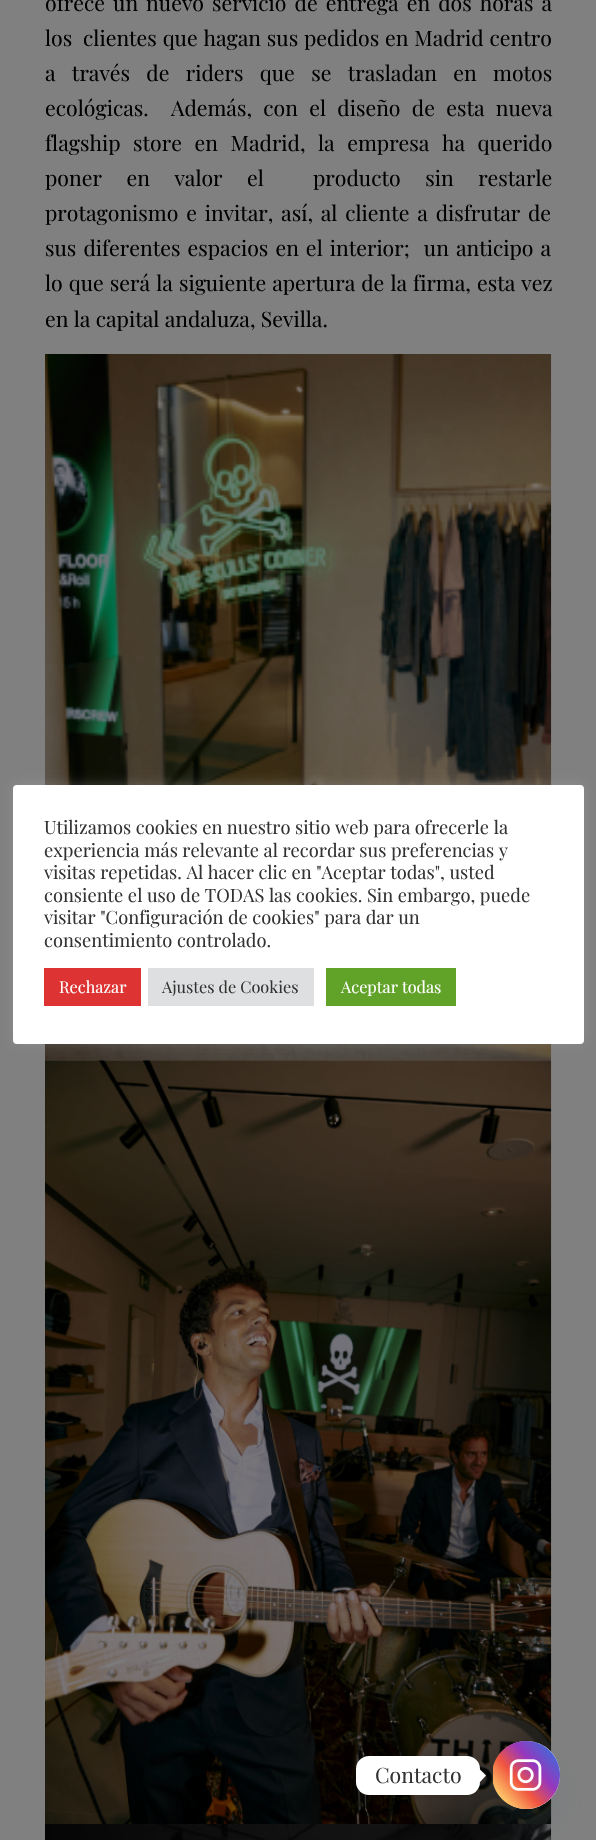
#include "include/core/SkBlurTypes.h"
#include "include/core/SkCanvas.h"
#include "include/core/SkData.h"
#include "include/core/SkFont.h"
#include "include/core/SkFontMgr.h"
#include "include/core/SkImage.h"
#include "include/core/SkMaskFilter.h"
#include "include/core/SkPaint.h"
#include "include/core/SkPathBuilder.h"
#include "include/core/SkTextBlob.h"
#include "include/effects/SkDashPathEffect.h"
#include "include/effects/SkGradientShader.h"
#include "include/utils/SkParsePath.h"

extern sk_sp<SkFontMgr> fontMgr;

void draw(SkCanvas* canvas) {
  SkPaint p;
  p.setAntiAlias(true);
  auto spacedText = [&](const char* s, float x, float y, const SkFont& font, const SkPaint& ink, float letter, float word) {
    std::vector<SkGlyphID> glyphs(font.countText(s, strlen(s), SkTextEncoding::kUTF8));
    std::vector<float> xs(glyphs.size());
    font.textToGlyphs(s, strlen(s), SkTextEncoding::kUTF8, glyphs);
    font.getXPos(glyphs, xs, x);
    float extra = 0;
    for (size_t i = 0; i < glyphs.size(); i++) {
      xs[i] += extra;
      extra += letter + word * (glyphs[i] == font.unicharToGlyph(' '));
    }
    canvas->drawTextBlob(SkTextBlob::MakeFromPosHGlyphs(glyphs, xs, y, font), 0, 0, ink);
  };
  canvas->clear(SkColorSetRGB(128, 128, 128));
  canvas->drawImageRect(SkImages::DeferredFromEncodedData(SkData::MakeFromFileName("images/1.png")), SkRect::MakeLTRB(45, 354, 552, 1061), SkSamplingOptions());
  canvas->drawImageRect(SkImages::DeferredFromEncodedData(SkData::MakeFromFileName("images/2.png")), SkRect::MakeLTRB(45, 1060, 552, 1824), SkSamplingOptions());
  canvas->drawImageRect(SkImages::DeferredFromEncodedData(SkData::MakeFromFileName("images/3.png")), SkRect::MakeLTRB(45, 1824, 552, 1840), SkSamplingOptions());
  p.setColor(SkColorSetARGB(77, 172, 171, 171));
  p.setMaskFilter(SkMaskFilter::MakeBlur(kNormal_SkBlurStyle, 6));
  canvas->drawRoundRect(SkRect::MakeLTRB(13, 784, 584, 1043), 4, 4, p);
  p.setMaskFilter(nullptr);
  p.setColor(SK_ColorWHITE);
  canvas->drawRoundRect(SkRect::MakeLTRB(13, 785, 584, 1044), 4, 4, p);
  p.setColor(SkColorSetRGB(221, 51, 51));
  canvas->drawRect(SkRect::MakeLTRB(44, 968, 141, 1006), p);
  p.setColor(SkColorSetRGB(222, 223, 224));
  canvas->drawRect(SkRect::MakeLTRB(148, 968, 314, 1006), p);
  p.setColor(SkColorSetRGB(97, 162, 41));
  canvas->drawRect(SkRect::MakeLTRB(326, 968, 456, 1006), p);
  p.setColor(SkColorSetARGB(41, 73, 104, 126));
  p.setMaskFilter(SkMaskFilter::MakeBlur(kNormal_SkBlurStyle, 15));
  canvas->drawRoundRect(SkRect::MakeLTRB(493, 1761, 560, 1829), 33.5f, 33.5f, p);
  p.setMaskFilter(nullptr);
  p.setColor(SK_ColorWHITE);
  canvas->drawRoundRect(SkRect::MakeLTRB(493, 1741, 560, 1809), 33.5f, 33.5f, p);
  canvas->drawImageRect(SkImages::DeferredFromEncodedData(SkData::MakeFromFileName("images/4.png")), SkRect::MakeLTRB(493, 1741, 560, 1809), SkSamplingOptions());
  p.setColor(SkColorSetARGB(38, 0, 0, 0));
  p.setMaskFilter(SkMaskFilter::MakeBlur(kNormal_SkBlurStyle, 5));
  canvas->drawRoundRect(SkRect::MakeLTRB(356, 1758, 480, 1796), 13, 13, p);
  p.setMaskFilter(nullptr);
  p.setColor(SK_ColorWHITE);
  canvas->drawRoundRect(SkRect::MakeLTRB(356, 1756, 480, 1795), 13, 13, p);
  canvas->drawPath(SkPathBuilder().moveTo(480, 1782).lineTo(480, 1769.5f).lineTo(486, 1775.5f).close().detach(), p);
  SkFont font1(fontMgr->matchFamilyStyle("Playfair Display", SkFontStyle::Normal()), 21.25f);
  font1.setSubpixel(true);
  p.setColor(SK_ColorBLACK);
  spacedText("ofrece un nuevo servicio de entrega en dos horas a", 45, 11, font1, p, 0, 2.75f);
  canvas->drawString("los", 45, 46, font1, p);
  spacedText("clientes que hagan sus pedidos en Madrid centro", 83, 46, font1, p, 0, 0.5f);
  spacedText("a través de riders que se trasladan en motos", 45, 81, font1, p, 0, 11);
  canvas->drawString("ecológicas.", 45, 116, font1, p);
  spacedText("Además, con el diseño de esta nueva", 171, 116, font1, p, 0, 6);
  spacedText("flagship store en Madrid, la empresa ha querido", 45, 151, font1, p, 0, 7.25f);
  spacedText("poner en valor el  producto sin restarle", 45, 186, font1, p, 0, 19.25f);
  spacedText("protagonismo e invitar, así, al cliente a disfrutar de", 45, 221, font1, p, 0, 2.5f);
  spacedText("sus diferentes espacios en el interior;  un anticipo a", 45, 256, font1, p, 0, 1.75f);
  spacedText("lo que será la siguiente apertura de la firma, esta vez", 45, 291, font1, p, 0, 0.75f);
  canvas->drawString("en la capital andaluza, Sevilla.", 45, 327, font1, p);
  SkFont font2(fontMgr->matchFamilyStyle("Playfair Display", SkFontStyle::Normal()), 18.3f);
  font2.setSubpixel(true);
  p.setColor(SkColorSetRGB(51, 51, 51));
  canvas->drawString("Utilizamos cookies en nuestro sitio web para ofrecerle la", 44, 834, font2, p);
  canvas->drawString("experiencia más relevante al recordar sus preferencias y", 44, 857, font2, p);
  canvas->drawString("visitas repetidas. Al hacer clic en \"Aceptar todas\", usted", 44, 879, font2, p);
  canvas->drawString("consiente el uso de TODAS las cookies. Sin embargo, puede", 44, 902, font2, p);
  canvas->drawString("visitar \"Configuración de cookies\" para dar un", 44, 924, font2, p);
  canvas->drawString("consentimiento controlado.", 44, 947, font2, p);
  SkFont font3(fontMgr->matchFamilyStyle("Playfair Display", SkFontStyle::Normal()), 16.25f);
  font3.setSubpixel(true);
  p.setColor(SK_ColorWHITE);
  canvas->drawString("Rechazar", 59, 993, font3, p);
  p.setColor(SkColorSetRGB(51, 51, 51));
  canvas->drawString("Ajustes de Cookies", 162, 993, font3, p);
  p.setColor(SK_ColorWHITE);
  canvas->drawString("Aceptar todas", 341, 993, font3, p);
  p.setColor(SkColorSetRGB(51, 51, 51));
  canvas->drawString("Contacto", 375, 1783, font1, p);
}
